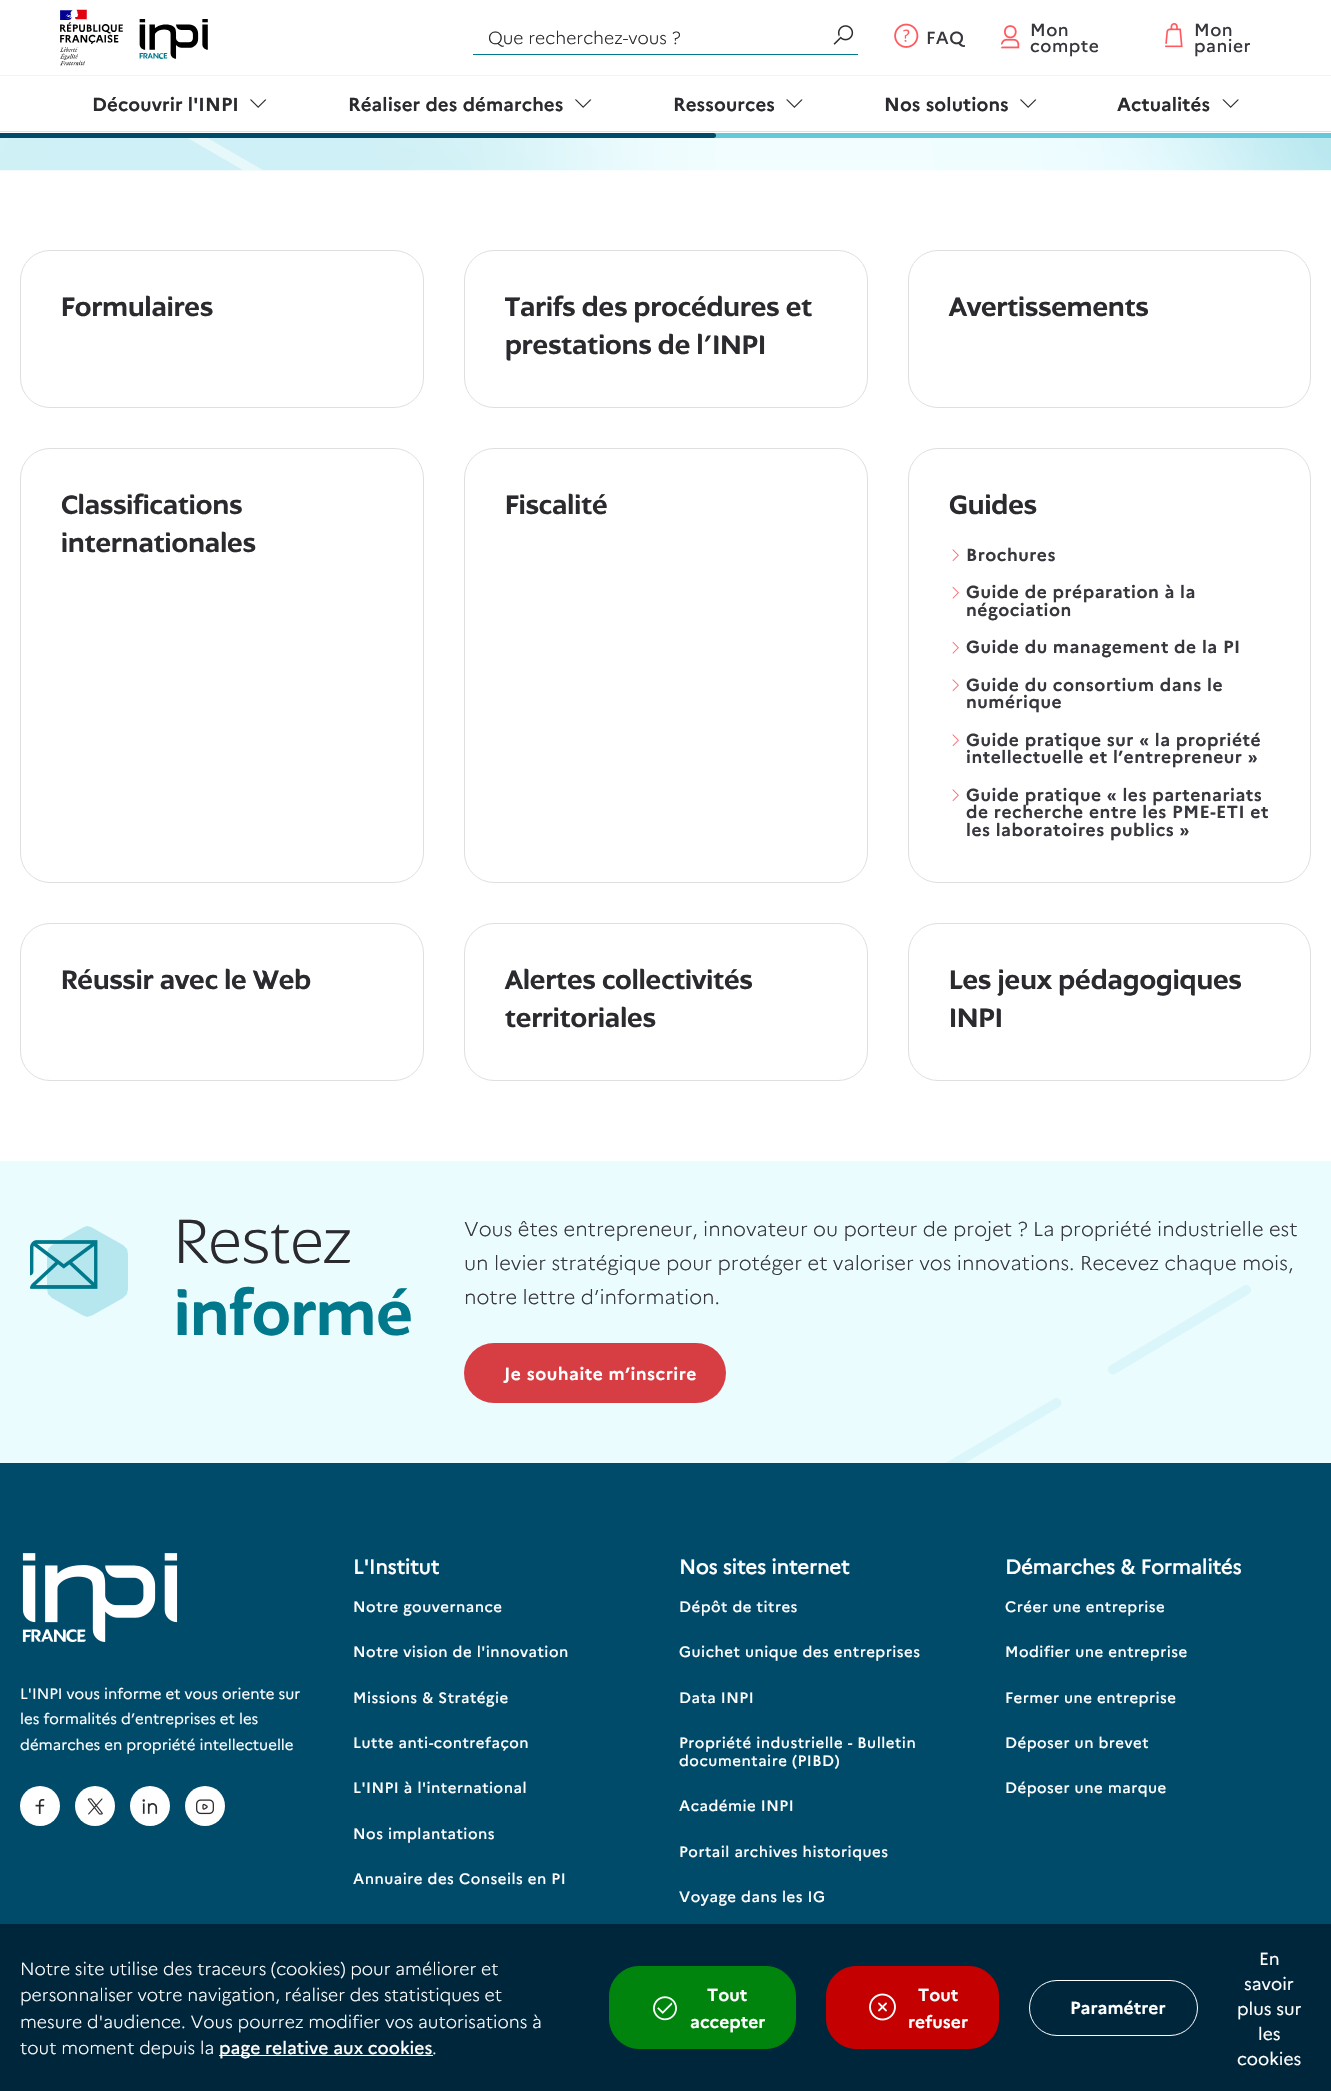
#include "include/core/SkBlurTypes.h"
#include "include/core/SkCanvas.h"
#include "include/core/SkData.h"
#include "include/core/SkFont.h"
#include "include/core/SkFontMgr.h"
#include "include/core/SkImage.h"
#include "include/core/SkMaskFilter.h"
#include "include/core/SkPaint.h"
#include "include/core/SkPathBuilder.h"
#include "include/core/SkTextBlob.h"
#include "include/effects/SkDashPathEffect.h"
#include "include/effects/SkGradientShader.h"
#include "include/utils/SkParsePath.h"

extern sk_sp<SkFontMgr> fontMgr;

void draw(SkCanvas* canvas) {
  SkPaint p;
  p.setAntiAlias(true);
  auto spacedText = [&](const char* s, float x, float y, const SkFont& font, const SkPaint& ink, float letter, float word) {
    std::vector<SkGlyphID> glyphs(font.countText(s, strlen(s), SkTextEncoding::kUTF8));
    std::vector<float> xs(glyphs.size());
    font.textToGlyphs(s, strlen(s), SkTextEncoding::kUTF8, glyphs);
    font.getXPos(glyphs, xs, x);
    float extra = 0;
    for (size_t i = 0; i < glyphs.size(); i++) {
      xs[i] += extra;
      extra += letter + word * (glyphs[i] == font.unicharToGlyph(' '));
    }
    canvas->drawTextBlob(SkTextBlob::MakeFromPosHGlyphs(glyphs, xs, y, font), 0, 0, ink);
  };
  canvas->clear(SK_ColorWHITE);
  canvas->drawImageRect(SkImages::DeferredFromEncodedData(SkData::MakeFromFileName("images/9.png")), SkRect::MakeLTRB(0, 138, 1331, 171), SkSamplingOptions());
  canvas->save();
  canvas->clipRect(SkRect::MakeLTRB(0, 0, 305, 170));
  p.setStyle(SkPaint::kStroke_Style);
  p.setStrokeWidth(10);
  p.setStrokeCap(SkPaint::kRound_Cap);
  p.setColor(SkColorSetARGB(128, 255, 255, 255));
  canvas->drawPath(SkPathBuilder().moveTo(95.5f, 78).lineTo(-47.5f, -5).moveTo(299.5f, 197).lineTo(156, 114).detach(), p);
  canvas->restore();
  canvas->drawImageRect(SkImages::DeferredFromEncodedData(SkData::MakeFromFileName("images/1.png")), SkRect::MakeLTRB(60, 9, 208, 66), SkSamplingOptions());
  p.setStyle(SkPaint::kFill_Style);
  p.setColor(SkColorSetRGB(0, 121, 140));
  canvas->drawRect(SkRect::MakeLTRB(473, 54, 858, 55), p);
  canvas->drawImageRect(SkImages::DeferredFromEncodedData(SkData::MakeFromFileName("images/2.png")), SkRect::MakeLTRB(833, 25, 854, 45), SkSamplingOptions());
  canvas->drawImageRect(SkImages::DeferredFromEncodedData(SkData::MakeFromFileName("images/3.png")), SkRect::MakeLTRB(894, 23, 919, 48), SkSamplingOptions());
  canvas->drawImageRect(SkImages::DeferredFromEncodedData(SkData::MakeFromFileName("images/4.png")), SkRect::MakeLTRB(1001, 25, 1020, 49), SkSamplingOptions());
  canvas->drawImageRect(SkImages::DeferredFromEncodedData(SkData::MakeFromFileName("images/5.png")), SkRect::MakeLTRB(1165, 23, 1183, 48), SkSamplingOptions());
  p.setColor(SkColorSetRGB(243, 244, 246));
  canvas->drawRect(SkRect::MakeLTRB(0, 75, 1331, 76), p);
  p.setColor(SkColorSetRGB(223, 223, 224));
  canvas->drawRect(SkRect::MakeLTRB(0, 131, 1331, 132), p);
  canvas->drawImageRect(SkImages::DeferredFromEncodedData(SkData::MakeFromFileName("images/6.png")), SkRect::MakeLTRB(250, 99, 267, 108), SkSamplingOptions());
  canvas->drawImageRect(SkImages::DeferredFromEncodedData(SkData::MakeFromFileName("images/6.png")), SkRect::MakeLTRB(575, 99, 592, 108), SkSamplingOptions());
  canvas->drawImageRect(SkImages::DeferredFromEncodedData(SkData::MakeFromFileName("images/7.png")), SkRect::MakeLTRB(786, 99, 803, 108), SkSamplingOptions());
  canvas->drawImageRect(SkImages::DeferredFromEncodedData(SkData::MakeFromFileName("images/6.png")), SkRect::MakeLTRB(1020, 99, 1037, 108), SkSamplingOptions());
  canvas->drawImageRect(SkImages::DeferredFromEncodedData(SkData::MakeFromFileName("images/8.png")), SkRect::MakeLTRB(1222, 99, 1239, 108), SkSamplingOptions());
  p.setColor(SkColorSetRGB(102, 200, 216));
  canvas->drawRect(SkRect::MakeLTRB(713, 133, 1331, 138), p);
  p.setColor(SkColorSetRGB(0, 74, 106));
  canvas->drawPath(SkPathBuilder().moveTo(0, 133).lineTo(713.5f, 133).cubicTo(715, 133, 716, 134, 716, 135.5f).cubicTo(716, 137, 715, 138, 713.5f, 138).lineTo(0, 138).close().detach(), p);
  p.setStyle(SkPaint::kStroke_Style);
  p.setStrokeWidth(1);
  p.setStrokeCap(SkPaint::kButt_Cap);
  p.setColor(SkColorSetRGB(223, 223, 224));
  canvas->drawRoundRect(SkRect::MakeLTRB(20.5f, 250.5f, 423.5f, 407.5f), 29.5f, 29.5f, p);
  canvas->drawRoundRect(SkRect::MakeLTRB(464.5f, 250.5f, 867.5f, 407.5f), 29.5f, 29.5f, p);
  canvas->drawRoundRect(SkRect::MakeLTRB(908.5f, 250.5f, 1310.5f, 407.5f), 29.5f, 29.5f, p);
  canvas->drawRoundRect(SkRect::MakeLTRB(20.5f, 448.5f, 423.5f, 882.5f), 29.5f, 29.5f, p);
  canvas->drawRoundRect(SkRect::MakeLTRB(464.5f, 448.5f, 867.5f, 882.5f), 29.5f, 29.5f, p);
  canvas->drawRoundRect(SkRect::MakeLTRB(908.5f, 448.5f, 1310.5f, 882.5f), 29.5f, 29.5f, p);
  canvas->drawImageRect(SkImages::DeferredFromEncodedData(SkData::MakeFromFileName("images/10.png")), SkRect::MakeLTRB(952, 549, 959, 562), SkSamplingOptions());
  canvas->drawImageRect(SkImages::DeferredFromEncodedData(SkData::MakeFromFileName("images/11.png")), SkRect::MakeLTRB(952, 586, 959, 599), SkSamplingOptions());
  canvas->drawImageRect(SkImages::DeferredFromEncodedData(SkData::MakeFromFileName("images/11.png")), SkRect::MakeLTRB(952, 641, 959, 654), SkSamplingOptions());
  canvas->drawImageRect(SkImages::DeferredFromEncodedData(SkData::MakeFromFileName("images/10.png")), SkRect::MakeLTRB(952, 679, 959, 692), SkSamplingOptions());
  canvas->drawImageRect(SkImages::DeferredFromEncodedData(SkData::MakeFromFileName("images/10.png")), SkRect::MakeLTRB(952, 734, 959, 747), SkSamplingOptions());
  canvas->drawImageRect(SkImages::DeferredFromEncodedData(SkData::MakeFromFileName("images/10.png")), SkRect::MakeLTRB(952, 789, 959, 802), SkSamplingOptions());
  canvas->drawRoundRect(SkRect::MakeLTRB(20.5f, 923.5f, 423.5f, 1080.5f), 29.5f, 29.5f, p);
  canvas->drawRoundRect(SkRect::MakeLTRB(464.5f, 923.5f, 867.5f, 1080.5f), 29.5f, 29.5f, p);
  canvas->drawRoundRect(SkRect::MakeLTRB(908.5f, 923.5f, 1310.5f, 1080.5f), 29.5f, 29.5f, p);
  p.setStyle(SkPaint::kFill_Style);
  p.setColor(SkColorSetRGB(235, 252, 255));
  canvas->drawRect(SkRect::MakeLTRB(0, 1161, 1331, 1463), p);
  p.setStyle(SkPaint::kStroke_Style);
  p.setStrokeWidth(10);
  p.setStrokeCap(SkPaint::kRound_Cap);
  p.setColor(SkColorSetRGB(218, 246, 250));
  canvas->drawPath(SkPathBuilder().moveTo(1113, 1369.5f).lineTo(1246, 1290).moveTo(923.5f, 1482).lineTo(1056.5f, 1403).detach(), p);
  p.setStyle(SkPaint::kFill_Style);
  p.setColor(SkColorSetRGB(182, 231, 239));
  canvas->drawPath(SkPathBuilder().moveTo(82, 1228).lineTo(52, 1245).lineTo(48, 1249).lineTo(47, 1254).lineTo(47, 1289).lineTo(48, 1294).lineTo(52, 1298).lineTo(82, 1315).lineTo(87, 1317).lineTo(93, 1315).lineTo(123, 1298).lineTo(127, 1294).lineTo(128, 1289).lineTo(128, 1254).lineTo(127, 1249).lineTo(123, 1245).lineTo(91, 1227).lineTo(87, 1226).lineTo(84, 1227).close().detach(), p);
  canvas->drawImageRect(SkImages::DeferredFromEncodedData(SkData::MakeFromFileName("images/12.png")), SkRect::MakeLTRB(30, 1240, 98, 1289), SkSamplingOptions());
  p.setColor(SkColorSetRGB(214, 62, 68));
  canvas->drawRoundRect(SkRect::MakeLTRB(464, 1343, 726, 1403), 30, 30, p);
  p.setColor(SkColorSetRGB(0, 74, 106));
  canvas->drawRect(SkRect::MakeLTRB(0, 1463, 1331, 1924), p);
  canvas->drawImageRect(SkImages::DeferredFromEncodedData(SkData::MakeFromFileName("images/13.png")), SkRect::MakeLTRB(22, 1553, 178, 1642), SkSamplingOptions());
  p.setColor(SK_ColorWHITE);
  canvas->drawCircle(40, 1806, 20, p);
  canvas->drawImageRect(SkImages::DeferredFromEncodedData(SkData::MakeFromFileName("images/14.png")), SkRect::MakeLTRB(35, 1799, 45, 1814), SkSamplingOptions());
  canvas->drawCircle(95, 1806, 20, p);
  canvas->drawImageRect(SkImages::DeferredFromEncodedData(SkData::MakeFromFileName("images/15.png")), SkRect::MakeLTRB(87, 1798, 103, 1815), SkSamplingOptions());
  canvas->drawCircle(150, 1806, 20, p);
  canvas->drawImageRect(SkImages::DeferredFromEncodedData(SkData::MakeFromFileName("images/16.png")), SkRect::MakeLTRB(142, 1799, 158, 1814), SkSamplingOptions());
  canvas->drawCircle(205, 1806, 20, p);
  canvas->drawImageRect(SkImages::DeferredFromEncodedData(SkData::MakeFromFileName("images/17.png")), SkRect::MakeLTRB(196, 1799, 214, 1815), SkSamplingOptions());
  p.setColor(SkColorSetRGB(0, 38, 59));
  canvas->drawRect(SkRect::MakeLTRB(0, 1924, 1331, 2091), p);
  p.setColor(SK_ColorWHITE);
  canvas->drawRect(SkRect::MakeLTRB(219, 2055, 433, 2056), p);
  p.setColor(SkColorSetRGB(0, 132, 13));
  canvas->drawRoundRect(SkRect::MakeLTRB(609.5f, 1966.5f, 795.5f, 2048.5f), 29.5f, 29.5f, p);
  p.setStyle(SkPaint::kStroke_Style);
  p.setStrokeWidth(1);
  p.setStrokeCap(SkPaint::kButt_Cap);
  canvas->drawRoundRect(SkRect::MakeLTRB(609.5f, 1966.5f, 795.5f, 2048.5f), 29.5f, 29.5f, p);
  canvas->drawImageRect(SkImages::DeferredFromEncodedData(SkData::MakeFromFileName("images/18.png")), SkRect::MakeLTRB(653, 1996, 677, 2021), SkSamplingOptions());
  p.setStyle(SkPaint::kFill_Style);
  p.setColor(SkColorSetRGB(197, 0, 0));
  canvas->drawRoundRect(SkRect::MakeLTRB(826.5f, 1966.5f, 998.5f, 2048.5f), 29.5f, 29.5f, p);
  p.setStyle(SkPaint::kStroke_Style);
  canvas->drawRoundRect(SkRect::MakeLTRB(826.5f, 1966.5f, 998.5f, 2048.5f), 29.5f, 29.5f, p);
  canvas->drawImageRect(SkImages::DeferredFromEncodedData(SkData::MakeFromFileName("images/19.png")), SkRect::MakeLTRB(869, 1993, 896, 2021), SkSamplingOptions());
  p.setColor(SK_ColorWHITE);
  canvas->drawRoundRect(SkRect::MakeLTRB(1029.5f, 1980.5f, 1197.5f, 2035.5f), 27.5f, 27.5f, p);
  SkFont font1(fontMgr->matchFamilyStyle("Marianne", SkFontStyle(300, SkFontStyle::kNormal_Width, SkFontStyle::kUpright_Slant)), 17.5f);
  font1.setSubpixel(true);
  p.setStyle(SkPaint::kFill_Style);
  p.setColor(SkColorSetRGB(42, 42, 47));
  canvas->drawString("Que recherchez-vous ?", 488, 44, font1, p);
  SkFont font2(fontMgr->matchFamilyStyle("Marianne", SkFontStyle(500, SkFontStyle::kNormal_Width, SkFontStyle::kUpright_Slant)), 17.5f);
  font2.setSubpixel(true);
  p.setColor(SkColorSetRGB(55, 55, 62));
  spacedText("FAQ", 926, 44, font2, p, 0.5f, 0);
  spacedText("Mon", 1030, 36, font2, p, 0.5f, 0);
  spacedText("compte", 1030, 52, font2, p, 0.5f, 0);
  spacedText("Mon", 1194, 36, font2, p, 0.5f, 0);
  spacedText("panier", 1194, 52, font2, p, 0.5f, 0);
  SkFont font3(fontMgr->matchFamilyStyle("Marianne", SkFontStyle::Bold()), 18.75f);
  font3.setSubpixel(true);
  p.setColor(SkColorSetRGB(42, 42, 47));
  spacedText("Découvrir l'INPI", 92, 111, font3, p, 0.1f, 0);
  spacedText("Réaliser des démarches", 348, 111, font3, p, 0.1f, 0);
  spacedText("Ressources", 673, 111, font3, p, 0.1f, 0);
  spacedText("Nos solutions", 884, 111, font3, p, 0.1f, 0);
  spacedText("Actualités", 1117, 111, font3, p, 0.1f, 0);
  SkFont font4(fontMgr->matchFamilyStyle("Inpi", SkFontStyle::Bold()), 28.75f);
  font4.setSubpixel(true);
  canvas->drawString("Formulaires", 61, 316, font4, p);
  canvas->save();
  canvas->clipRect(SkRect::MakeLTRB(505, 291, 826, 366));
  canvas->drawString("Tarifs des procédures et", 505, 316, font4, p);
  canvas->restore();
  canvas->drawString("prestations de l'INPI", 505, 354, font4, p);
  canvas->drawString("Avertissements", 949, 316, font4, p);
  canvas->drawString("Classifications", 61, 514, font4, p);
  canvas->drawString("internationales", 61, 552, font4, p);
  canvas->drawString("Fiscalité", 505, 514, font4, p);
  canvas->drawString("Guides", 949, 514, font4, p);
  SkFont font5(fontMgr->matchFamilyStyle("Marianne", SkFontStyle::Bold()), 17.5f);
  font5.setSubpixel(true);
  p.setColor(SkColorSetRGB(55, 55, 62));
  spacedText("Brochures", 966, 561, font5, p, 0.5f, 0);
  spacedText("Guide de préparation à la", 966, 598, font5, p, 0.5f, 0);
  spacedText("négociation", 966, 616, font5, p, 0.5f, 0);
  spacedText("Guide du management de la PI", 966, 653, font5, p, 0.5f, 0);
  spacedText("Guide du consortium dans le", 966, 691, font5, p, 0.5f, 0);
  spacedText("numérique", 966, 708, font5, p, 0.5f, 0);
  spacedText("Guide pratique sur « la propriété", 966, 746, font5, p, 0.5f, 0);
  spacedText("intellectuelle et l’entrepreneur »", 966, 763, font5, p, 0.5f, 0);
  spacedText("Guide pratique « les partenariats", 966, 801, font5, p, 0.5f, 0);
  spacedText("de recherche entre les PME-ETI et", 966, 818, font5, p, 0.5f, 0);
  spacedText("les laboratoires publics »", 966, 836, font5, p, 0.5f, 0);
  p.setColor(SkColorSetRGB(42, 42, 47));
  canvas->drawString("Réussir avec le Web", 61, 989, font4, p);
  canvas->drawString("Alertes collectivités", 505, 989, font4, p);
  canvas->drawString("territoriales", 505, 1027, font4, p);
  canvas->drawString("Les jeux pédagogiques", 949, 989, font4, p);
  canvas->drawString("INPI", 949, 1027, font4, p);
  SkFont font6(fontMgr->matchFamilyStyle("Inpi", SkFontStyle(300, SkFontStyle::kNormal_Width, SkFontStyle::kUpright_Slant)), 67.5f);
  font6.setSubpixel(true);
  canvas->drawString("Restez", 174, 1263, font6, p);
  SkFont font7(fontMgr->matchFamilyStyle("Inpi", SkFontStyle::Bold()), 67.5f);
  font7.setSubpixel(true);
  p.setColor(SkColorSetRGB(0, 121, 140));
  canvas->drawString("informé", 174, 1335, font7, p);
  SkFont font8(fontMgr->matchFamilyStyle("Marianne", SkFontStyle(300, SkFontStyle::kNormal_Width, SkFontStyle::kUpright_Slant)), 20);
  font8.setSubpixel(true);
  p.setColor(SkColorSetRGB(55, 55, 62));
  canvas->drawString("Vous êtes entrepreneur, innovateur ou porteur de projet ? La propriété industrielle est", 464, 1236, font8, p);
  canvas->drawString("un levier stratégique pour protéger et valoriser vos innovations. Recevez chaque mois,", 464, 1270, font8, p);
  canvas->drawString("notre lettre d’information.", 464, 1304, font8, p);
  p.setColor(SK_ColorWHITE);
  spacedText("Je souhaite m’inscrire", 504, 1380, font5, p, 0.5f, 0);
  SkFont font9(fontMgr->matchFamilyStyle("Marianne", SkFontStyle::Normal()), 15);
  font9.setSubpixel(true);
  canvas->drawString("L'INPI vous informe et vous oriente sur", 20, 1699, font9, p);
  canvas->drawString("les formalités d’entreprises et les", 20, 1724, font9, p);
  canvas->drawString("démarches en propriété intellectuelle", 20, 1750, font9, p);
  SkFont font10(fontMgr->matchFamilyStyle("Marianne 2", SkFontStyle::Bold()), 20);
  font10.setSubpixel(true);
  canvas->drawString("L'Institut", 353, 1574, font10, p);
  SkFont font11(fontMgr->matchFamilyStyle("Marianne", SkFontStyle(500, SkFontStyle::kNormal_Width, SkFontStyle::kUpright_Slant)), 15);
  font11.setSubpixel(true);
  spacedText("Notre gouvernance", 353, 1612, font11, p, 0.5f, 0);
  spacedText("Notre vision de l'innovation", 353, 1657, font11, p, 0.5f, 0);
  spacedText("Missions & Stratégie", 353, 1703, font11, p, 0.5f, 0);
  spacedText("Lutte anti-contrefaçon", 353, 1748, font11, p, 0.5f, 0);
  spacedText("L'INPI à l'international", 353, 1793, font11, p, 0.5f, 0);
  spacedText("Nos implantations", 353, 1839, font11, p, 0.5f, 0);
  spacedText("Annuaire des Conseils en PI", 353, 1884, font11, p, 0.5f, 0);
  canvas->drawString("Nos sites internet", 679, 1574, font10, p);
  spacedText("Dépôt de titres", 679, 1612, font11, p, 0.5f, 0);
  spacedText("Guichet unique des entreprises", 679, 1657, font11, p, 0.5f, 0);
  spacedText("Data INPI", 679, 1703, font11, p, 0.5f, 0);
  spacedText("Propriété industrielle - Bulletin", 679, 1748, font11, p, 0.5f, 0);
  spacedText("documentaire (PIBD)", 679, 1766, font11, p, 0.5f, 0);
  spacedText("Académie INPI", 679, 1811, font11, p, 0.5f, 0);
  spacedText("Portail archives historiques", 679, 1857, font11, p, 0.5f, 0);
  spacedText("Voyage dans les IG", 679, 1902, font11, p, 0.5f, 0);
  canvas->drawString("Démarches & Formalités", 1005, 1574, font10, p);
  spacedText("Créer une entreprise", 1005, 1612, font11, p, 0.5f, 0);
  spacedText("Modifier une entreprise", 1005, 1657, font11, p, 0.5f, 0);
  spacedText("Fermer une entreprise", 1005, 1703, font11, p, 0.5f, 0);
  spacedText("Déposer un brevet", 1005, 1748, font11, p, 0.5f, 0);
  spacedText("Déposer une marque", 1005, 1793, font11, p, 0.5f, 0);
  canvas->drawString("Notre site utilise des traceurs (cookies) pour améliorer et", 20, 1975, font1, p);
  canvas->drawString("personnaliser votre navigation, réaliser des statistiques et", 20, 2001, font1, p);
  canvas->drawString("mesure d'audience. Vous pourrez modifier vos autorisations à", 20, 2028, font1, p);
  canvas->drawString("tout moment depuis la", 20, 2054, font1, p);
  canvas->drawString("page relative aux cookies", 219, 2054, font2, p);
  canvas->drawString(".", 432, 2054, font1, p);
  canvas->drawString("Tout", 707, 2001, font5, p);
  canvas->drawString("accepter", 690, 2028, font5, p);
  canvas->drawString("Tout", 918, 2001, font5, p);
  canvas->drawString("refuser", 908, 2028, font5, p);
  canvas->drawString("Paramétrer", 1070, 2014, font5, p);
  SkFont font12(fontMgr->matchFamilyStyle("Marianne", SkFontStyle::Normal()), 17.5f);
  font12.setSubpixel(true);
  canvas->drawString("En", 1259, 1965, font12, p);
  canvas->drawString("savoir", 1244, 1990, font12, p);
  canvas->drawString("plus sur", 1237, 2015, font12, p);
  canvas->drawString("les", 1258, 2040, font12, p);
  canvas->drawString("cookies", 1237, 2065, font12, p);
}
